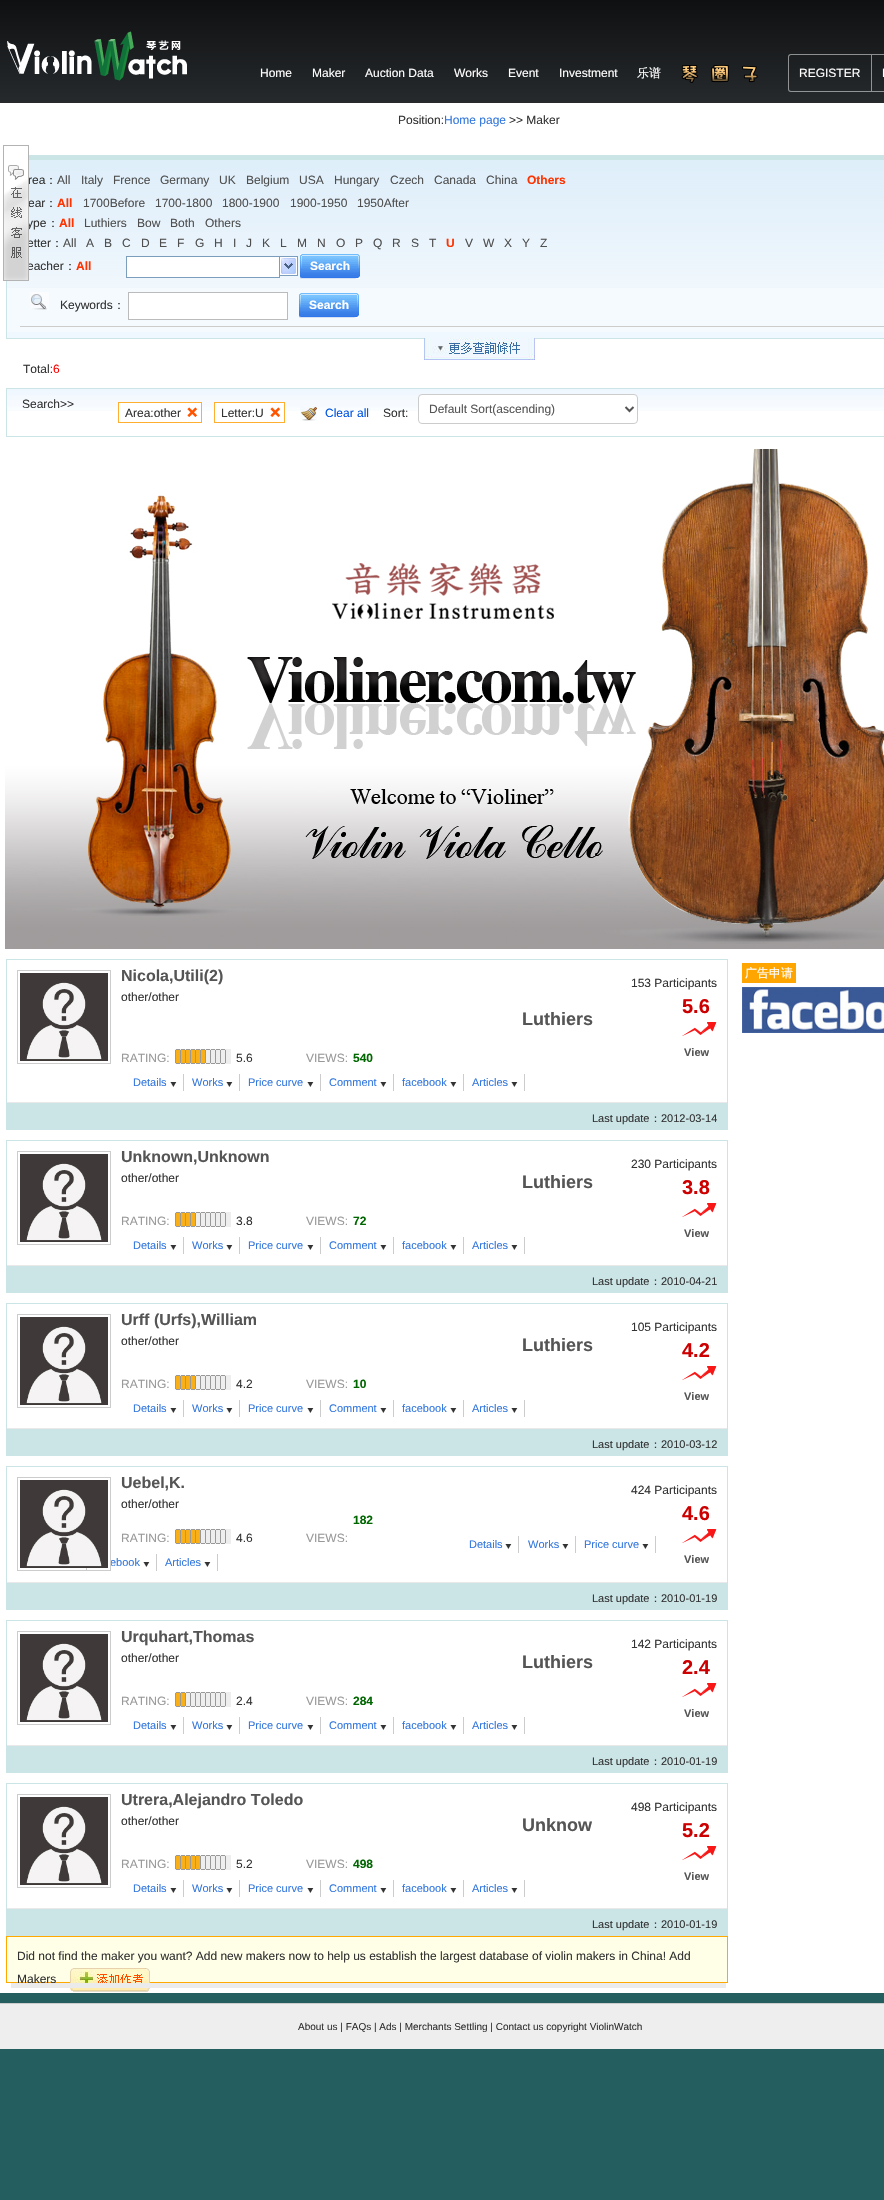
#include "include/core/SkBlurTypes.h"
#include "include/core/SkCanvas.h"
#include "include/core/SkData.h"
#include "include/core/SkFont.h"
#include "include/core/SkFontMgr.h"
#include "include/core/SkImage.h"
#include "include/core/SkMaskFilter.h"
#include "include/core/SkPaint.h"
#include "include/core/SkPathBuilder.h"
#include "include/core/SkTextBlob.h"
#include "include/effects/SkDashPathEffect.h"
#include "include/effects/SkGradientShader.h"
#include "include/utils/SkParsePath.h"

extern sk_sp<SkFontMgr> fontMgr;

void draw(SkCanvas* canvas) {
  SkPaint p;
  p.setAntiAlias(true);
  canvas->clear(SkColorSetRGB(36, 94, 95));
  {
    const SkColor colors[] = {SkColorSetRGB(15, 16, 17), SkColorSetRGB(38, 42, 45)};
    const float stops[] = {0, 1};
    const SkPoint ends[] = {{442, 0}, {442, 103}};
    p.setShader(SkGradientShader::MakeLinear(ends, colors, stops, 2, SkTileMode::kClamp));
    p.setAlpha(255);
  }
  canvas->drawRect(SkRect::MakeLTRB(0, 0, 884, 103), p);
  canvas->drawImageRect(SkImages::DeferredFromEncodedData(SkData::MakeFromFileName("images/1.png")), SkRect::MakeLTRB(7, 31, 187, 81), SkSamplingOptions());
  canvas->drawImageRect(SkImages::DeferredFromEncodedData(SkData::MakeFromFileName("images/2.png")), SkRect::MakeLTRB(681, 64, 758, 83), SkSamplingOptions());
  p.setShader(nullptr);
  p.setColor(SkColorSetARGB(128, 255, 255, 255));
  canvas->drawPath(SkPathBuilder(SkPathFillType::kEvenOdd).moveTo(791, 54).lineTo(871, 54).lineTo(871, 92).lineTo(791, 92).cubicTo(789, 92, 788, 91, 788, 89).lineTo(788, 57).cubicTo(788, 55, 789, 54, 791, 54).close().moveTo(791, 55).lineTo(871, 55).lineTo(871, 91).lineTo(791, 91).cubicTo(790, 91, 789, 90, 789, 89).lineTo(789, 57).cubicTo(789, 56, 790, 55, 791, 55).close().detach(), p);
  p.setStyle(SkPaint::kStroke_Style);
  p.setStrokeWidth(1);
  canvas->drawRect(SkRect::MakeLTRB(871.5f, 54.5f, 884.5f, 91.5f), p);
  p.setStyle(SkPaint::kFill_Style);
  p.setColor(SK_ColorWHITE);
  canvas->drawRect(SkRect::MakeLTRB(0, 103, 884, 1993), p);
  p.setColor(SkColorSetRGB(245, 250, 254));
  canvas->drawRect(SkRect::MakeLTRB(7, 288, 884, 332), p);
  canvas->drawImageRect(SkImages::DeferredFromEncodedData(SkData::MakeFromFileName("images/4.png")), SkRect::MakeLTRB(7, 160, 884, 288), SkSamplingOptions());
  p.setColor(SkColorSetRGB(203, 228, 230));
  canvas->drawRect(SkRect::MakeLTRB(29, 155, 884, 160), p);
  p.setColor(SK_ColorWHITE);
  canvas->drawRect(SkRect::MakeLTRB(126.5f, 256.5f, 279.5f, 277.5f), p);
  p.setStyle(SkPaint::kStroke_Style);
  p.setColor(SkColorSetRGB(123, 158, 189));
  canvas->drawRect(SkRect::MakeLTRB(126.5f, 256.5f, 279.5f, 277.5f), p);
  canvas->drawImageRect(SkImages::DeferredFromEncodedData(SkData::MakeFromFileName("images/5.png")), SkRect::MakeLTRB(280, 256, 298, 276), SkSamplingOptions());
  canvas->drawImageRect(SkImages::DeferredFromEncodedData(SkData::MakeFromFileName("images/6.png")), SkRect::MakeLTRB(300, 254, 355, 279), SkSamplingOptions());
  canvas->drawImageRect(SkImages::DeferredFromEncodedData(SkData::MakeFromFileName("images/7.png")), SkRect::MakeLTRB(355, 254, 360, 279), SkSamplingOptions());
  p.setStyle(SkPaint::kFill_Style);
  p.setColor(SkColorSetRGB(204, 204, 204));
  canvas->drawRect(SkRect::MakeLTRB(20, 326, 884, 327), p);
  canvas->drawImageRect(SkImages::DeferredFromEncodedData(SkData::MakeFromFileName("images/8.png")), SkRect::MakeLTRB(30, 292, 49, 310), SkSamplingOptions());
  p.setColor(SK_ColorWHITE);
  canvas->drawRect(SkRect::MakeLTRB(128.5f, 292.5f, 287.5f, 319.5f), p);
  p.setStyle(SkPaint::kStroke_Style);
  p.setColor(SkColorSetRGB(187, 187, 187));
  canvas->drawRect(SkRect::MakeLTRB(128.5f, 292.5f, 287.5f, 319.5f), p);
  canvas->drawImageRect(SkImages::DeferredFromEncodedData(SkData::MakeFromFileName("images/6.png")), SkRect::MakeLTRB(299, 293, 354, 318), SkSamplingOptions());
  canvas->drawImageRect(SkImages::DeferredFromEncodedData(SkData::MakeFromFileName("images/7.png")), SkRect::MakeLTRB(354, 293, 359, 318), SkSamplingOptions());
  p.setStyle(SkPaint::kFill_Style);
  p.setColor(SkColorSetRGB(239, 247, 255));
  canvas->drawRect(SkRect::MakeLTRB(6, 332, 884, 338), p);
  p.setColor(SkColorSetRGB(203, 228, 230));
  canvas->drawRect(SkRect::MakeLTRB(6, 338, 884, 339), p);
  canvas->drawRect(SkRect::MakeLTRB(6, 281, 7, 339), p);
  canvas->drawImageRect(SkImages::DeferredFromEncodedData(SkData::MakeFromFileName("images/9.png")), SkRect::MakeLTRB(424, 338, 535, 360), SkSamplingOptions());
  canvas->drawImageRect(SkImages::DeferredFromEncodedData(SkData::MakeFromFileName("images/10.png")), SkRect::MakeLTRB(7, 389, 884, 411), SkSamplingOptions());
  p.setStyle(SkPaint::kStroke_Style);
  canvas->drawRect(SkRect::MakeLTRB(6.5f, 388.5f, 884.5f, 436.5f), p);
  p.setStyle(SkPaint::kFill_Style);
  p.setColor(SK_ColorWHITE);
  canvas->drawRect(SkRect::MakeLTRB(119, 403, 201, 411), p);
  canvas->drawImageRect(SkImages::DeferredFromEncodedData(SkData::MakeFromFileName("images/11.png")), SkRect::MakeLTRB(187, 407, 197, 417), SkSamplingOptions());
  p.setStyle(SkPaint::kStroke_Style);
  p.setColor(SkColorSetRGB(254, 175, 48));
  canvas->drawRect(SkRect::MakeLTRB(118.5f, 402.5f, 201.5f, 422.5f), p);
  p.setStyle(SkPaint::kFill_Style);
  p.setColor(SK_ColorWHITE);
  canvas->drawRect(SkRect::MakeLTRB(215, 403, 284, 411), p);
  canvas->drawImageRect(SkImages::DeferredFromEncodedData(SkData::MakeFromFileName("images/11.png")), SkRect::MakeLTRB(270, 407, 280, 417), SkSamplingOptions());
  p.setStyle(SkPaint::kStroke_Style);
  p.setColor(SkColorSetRGB(254, 175, 48));
  canvas->drawRect(SkRect::MakeLTRB(214.5f, 402.5f, 284.5f, 422.5f), p);
  canvas->drawImageRect(SkImages::DeferredFromEncodedData(SkData::MakeFromFileName("images/12.png")), SkRect::MakeLTRB(300, 406, 317, 421), SkSamplingOptions());
  p.setStyle(SkPaint::kFill_Style);
  p.setColor(SK_ColorWHITE);
  canvas->drawRoundRect(SkRect::MakeLTRB(418.5f, 394.5f, 637.5f, 423.5f), 3.5f, 3.5f, p);
  p.setStyle(SkPaint::kStroke_Style);
  p.setColor(SkColorSetRGB(204, 204, 204));
  canvas->drawRoundRect(SkRect::MakeLTRB(418.5f, 394.5f, 637.5f, 423.5f), 3.5f, 3.5f, p);
  p.setStrokeWidth(2);
  p.setColor(SkColorSetRGB(85, 85, 85));
  canvas->drawPath(SkPathBuilder().moveTo(625.5f, 407).lineTo(629.5f, 411).lineTo(633.5f, 407).detach(), p);
  canvas->drawImageRect(SkImages::DeferredFromEncodedData(SkData::MakeFromFileName("images/13.png")), SkRect::MakeLTRB(5, 449, 884, 949), SkSamplingOptions());
  p.setStrokeWidth(1);
  p.setColor(SkColorSetRGB(203, 228, 230));
  canvas->drawRect(SkRect::MakeLTRB(6.5f, 959.5f, 727.5f, 1129.5f), p);
  p.setColor(SkColorSetRGB(204, 204, 204));
  canvas->drawRect(SkRect::MakeLTRB(17.5f, 970.5f, 110.5f, 1063.5f), p);
  canvas->drawImageRect(SkImages::DeferredFromEncodedData(SkData::MakeFromFileName("images/14.png")), SkRect::MakeLTRB(20, 973, 108, 1061), SkSamplingOptions());
  canvas->drawImageRect(SkImages::DeferredFromEncodedData(SkData::MakeFromFileName("images/15.png")), SkRect::MakeLTRB(682, 1022, 717, 1036), SkSamplingOptions());
  p.setStyle(SkPaint::kFill_Style);
  p.setColor(SkColorSetRGB(238, 238, 238));
  canvas->drawRect(SkRect::MakeLTRB(175, 1049, 231, 1064), p);
  p.setColor(SkColorSetRGB(249, 175, 24));
  canvas->drawRect(SkRect::MakeLTRB(176, 1050, 205, 1063), p);
  canvas->drawImageRect(SkImages::DeferredFromEncodedData(SkData::MakeFromFileName("images/16.png")), SkRect::MakeLTRB(175, 1049, 226, 1064), SkSamplingOptions());
  p.setColor(SkColorSetRGB(204, 204, 204));
  canvas->drawRect(SkRect::MakeLTRB(183, 1074, 184, 1091), p);
  canvas->drawImageRect(SkImages::DeferredFromEncodedData(SkData::MakeFromFileName("images/17.png")), SkRect::MakeLTRB(170, 1082, 177, 1087), SkSamplingOptions());
  canvas->drawRect(SkRect::MakeLTRB(239, 1074, 240, 1091), p);
  canvas->drawImageRect(SkImages::DeferredFromEncodedData(SkData::MakeFromFileName("images/17.png")), SkRect::MakeLTRB(226, 1082, 233, 1087), SkSamplingOptions());
  canvas->drawRect(SkRect::MakeLTRB(320, 1074, 321, 1091), p);
  canvas->drawImageRect(SkImages::DeferredFromEncodedData(SkData::MakeFromFileName("images/17.png")), SkRect::MakeLTRB(307, 1082, 314, 1087), SkSamplingOptions());
  canvas->drawRect(SkRect::MakeLTRB(393, 1074, 394, 1091), p);
  canvas->drawImageRect(SkImages::DeferredFromEncodedData(SkData::MakeFromFileName("images/17.png")), SkRect::MakeLTRB(380, 1082, 387, 1087), SkSamplingOptions());
  canvas->drawRect(SkRect::MakeLTRB(463, 1074, 464, 1091), p);
  canvas->drawImageRect(SkImages::DeferredFromEncodedData(SkData::MakeFromFileName("images/17.png")), SkRect::MakeLTRB(450, 1082, 457, 1087), SkSamplingOptions());
  canvas->drawRect(SkRect::MakeLTRB(524, 1074, 525, 1091), p);
  canvas->drawImageRect(SkImages::DeferredFromEncodedData(SkData::MakeFromFileName("images/17.png")), SkRect::MakeLTRB(511, 1082, 518, 1087), SkSamplingOptions());
  p.setColor(SkColorSetRGB(203, 228, 230));
  canvas->drawRect(SkRect::MakeLTRB(7, 1103, 727, 1129), p);
  p.setColor(SkColorSetRGB(233, 233, 233));
  canvas->drawRect(SkRect::MakeLTRB(7, 1102, 727, 1103), p);
  p.setStyle(SkPaint::kStroke_Style);
  p.setColor(SkColorSetRGB(203, 228, 230));
  canvas->drawRect(SkRect::MakeLTRB(6.5f, 1140.5f, 727.5f, 1292.5f), p);
  p.setColor(SkColorSetRGB(204, 204, 204));
  canvas->drawRect(SkRect::MakeLTRB(17.5f, 1151.5f, 110.5f, 1244.5f), p);
  canvas->drawImageRect(SkImages::DeferredFromEncodedData(SkData::MakeFromFileName("images/18.png")), SkRect::MakeLTRB(20, 1154, 108, 1242), SkSamplingOptions());
  canvas->drawImageRect(SkImages::DeferredFromEncodedData(SkData::MakeFromFileName("images/15.png")), SkRect::MakeLTRB(682, 1203, 717, 1217), SkSamplingOptions());
  p.setStyle(SkPaint::kFill_Style);
  p.setColor(SkColorSetRGB(238, 238, 238));
  canvas->drawRect(SkRect::MakeLTRB(175, 1212, 231, 1227), p);
  p.setColor(SkColorSetRGB(249, 175, 24));
  canvas->drawRect(SkRect::MakeLTRB(176, 1213, 195, 1226), p);
  canvas->drawImageRect(SkImages::DeferredFromEncodedData(SkData::MakeFromFileName("images/19.png")), SkRect::MakeLTRB(175, 1212, 226, 1227), SkSamplingOptions());
  p.setColor(SkColorSetRGB(204, 204, 204));
  canvas->drawRect(SkRect::MakeLTRB(183, 1237, 184, 1254), p);
  canvas->drawImageRect(SkImages::DeferredFromEncodedData(SkData::MakeFromFileName("images/17.png")), SkRect::MakeLTRB(170, 1245, 177, 1250), SkSamplingOptions());
  canvas->drawRect(SkRect::MakeLTRB(239, 1237, 240, 1254), p);
  canvas->drawImageRect(SkImages::DeferredFromEncodedData(SkData::MakeFromFileName("images/17.png")), SkRect::MakeLTRB(226, 1245, 233, 1250), SkSamplingOptions());
  canvas->drawRect(SkRect::MakeLTRB(320, 1237, 321, 1254), p);
  canvas->drawImageRect(SkImages::DeferredFromEncodedData(SkData::MakeFromFileName("images/17.png")), SkRect::MakeLTRB(307, 1245, 314, 1250), SkSamplingOptions());
  canvas->drawRect(SkRect::MakeLTRB(393, 1237, 394, 1254), p);
  canvas->drawImageRect(SkImages::DeferredFromEncodedData(SkData::MakeFromFileName("images/17.png")), SkRect::MakeLTRB(380, 1245, 387, 1250), SkSamplingOptions());
  canvas->drawRect(SkRect::MakeLTRB(463, 1237, 464, 1254), p);
  canvas->drawImageRect(SkImages::DeferredFromEncodedData(SkData::MakeFromFileName("images/17.png")), SkRect::MakeLTRB(450, 1245, 457, 1250), SkSamplingOptions());
  canvas->drawRect(SkRect::MakeLTRB(524, 1237, 525, 1254), p);
  canvas->drawImageRect(SkImages::DeferredFromEncodedData(SkData::MakeFromFileName("images/17.png")), SkRect::MakeLTRB(511, 1245, 518, 1250), SkSamplingOptions());
  p.setColor(SkColorSetRGB(203, 228, 230));
  canvas->drawRect(SkRect::MakeLTRB(7, 1266, 727, 1292), p);
  p.setColor(SkColorSetRGB(233, 233, 233));
  canvas->drawRect(SkRect::MakeLTRB(7, 1265, 727, 1266), p);
  p.setStyle(SkPaint::kStroke_Style);
  p.setColor(SkColorSetRGB(203, 228, 230));
  canvas->drawRect(SkRect::MakeLTRB(6.5f, 1303.5f, 727.5f, 1455.5f), p);
  p.setColor(SkColorSetRGB(204, 204, 204));
  canvas->drawRect(SkRect::MakeLTRB(17.5f, 1314.5f, 110.5f, 1407.5f), p);
  canvas->drawImageRect(SkImages::DeferredFromEncodedData(SkData::MakeFromFileName("images/20.png")), SkRect::MakeLTRB(20, 1317, 108, 1405), SkSamplingOptions());
  canvas->drawImageRect(SkImages::DeferredFromEncodedData(SkData::MakeFromFileName("images/15.png")), SkRect::MakeLTRB(682, 1366, 717, 1380), SkSamplingOptions());
  p.setStyle(SkPaint::kFill_Style);
  p.setColor(SkColorSetRGB(238, 238, 238));
  canvas->drawRect(SkRect::MakeLTRB(175, 1375, 231, 1390), p);
  p.setColor(SkColorSetRGB(249, 175, 24));
  canvas->drawRect(SkRect::MakeLTRB(176, 1376, 195, 1389), p);
  canvas->drawImageRect(SkImages::DeferredFromEncodedData(SkData::MakeFromFileName("images/19.png")), SkRect::MakeLTRB(175, 1375, 226, 1390), SkSamplingOptions());
  p.setColor(SkColorSetRGB(204, 204, 204));
  canvas->drawRect(SkRect::MakeLTRB(183, 1400, 184, 1417), p);
  canvas->drawImageRect(SkImages::DeferredFromEncodedData(SkData::MakeFromFileName("images/17.png")), SkRect::MakeLTRB(170, 1408, 177, 1413), SkSamplingOptions());
  canvas->drawRect(SkRect::MakeLTRB(239, 1400, 240, 1417), p);
  canvas->drawImageRect(SkImages::DeferredFromEncodedData(SkData::MakeFromFileName("images/17.png")), SkRect::MakeLTRB(226, 1408, 233, 1413), SkSamplingOptions());
  canvas->drawRect(SkRect::MakeLTRB(320, 1400, 321, 1417), p);
  canvas->drawImageRect(SkImages::DeferredFromEncodedData(SkData::MakeFromFileName("images/17.png")), SkRect::MakeLTRB(307, 1408, 314, 1413), SkSamplingOptions());
  canvas->drawRect(SkRect::MakeLTRB(393, 1400, 394, 1417), p);
  canvas->drawImageRect(SkImages::DeferredFromEncodedData(SkData::MakeFromFileName("images/17.png")), SkRect::MakeLTRB(380, 1408, 387, 1413), SkSamplingOptions());
  canvas->drawRect(SkRect::MakeLTRB(463, 1400, 464, 1417), p);
  canvas->drawImageRect(SkImages::DeferredFromEncodedData(SkData::MakeFromFileName("images/17.png")), SkRect::MakeLTRB(450, 1408, 457, 1413), SkSamplingOptions());
  canvas->drawRect(SkRect::MakeLTRB(524, 1400, 525, 1417), p);
  canvas->drawImageRect(SkImages::DeferredFromEncodedData(SkData::MakeFromFileName("images/17.png")), SkRect::MakeLTRB(511, 1408, 518, 1413), SkSamplingOptions());
  p.setColor(SkColorSetRGB(203, 228, 230));
  canvas->drawRect(SkRect::MakeLTRB(7, 1429, 727, 1455), p);
  p.setColor(SkColorSetRGB(233, 233, 233));
  canvas->drawRect(SkRect::MakeLTRB(7, 1428, 727, 1429), p);
  p.setStyle(SkPaint::kStroke_Style);
  p.setColor(SkColorSetRGB(203, 228, 230));
  canvas->drawRect(SkRect::MakeLTRB(6.5f, 1466.5f, 727.5f, 1609.5f), p);
  canvas->drawImageRect(SkImages::DeferredFromEncodedData(SkData::MakeFromFileName("images/15.png")), SkRect::MakeLTRB(682, 1529, 717, 1543), SkSamplingOptions());
  p.setStyle(SkPaint::kFill_Style);
  p.setColor(SkColorSetRGB(238, 238, 238));
  canvas->drawRect(SkRect::MakeLTRB(175, 1529, 231, 1544), p);
  p.setColor(SkColorSetRGB(249, 175, 24));
  canvas->drawRect(SkRect::MakeLTRB(176, 1530, 200, 1543), p);
  canvas->drawImageRect(SkImages::DeferredFromEncodedData(SkData::MakeFromFileName("images/21.png")), SkRect::MakeLTRB(175, 1529, 226, 1544), SkSamplingOptions());
  p.setColor(SkColorSetRGB(204, 204, 204));
  canvas->drawRect(SkRect::MakeLTRB(518, 1536, 519, 1553), p);
  canvas->drawImageRect(SkImages::DeferredFromEncodedData(SkData::MakeFromFileName("images/17.png")), SkRect::MakeLTRB(505, 1544, 512, 1549), SkSamplingOptions());
  canvas->drawRect(SkRect::MakeLTRB(575, 1536, 576, 1553), p);
  canvas->drawImageRect(SkImages::DeferredFromEncodedData(SkData::MakeFromFileName("images/17.png")), SkRect::MakeLTRB(562, 1544, 569, 1549), SkSamplingOptions());
  canvas->drawRect(SkRect::MakeLTRB(655, 1536, 656, 1553), p);
  canvas->drawImageRect(SkImages::DeferredFromEncodedData(SkData::MakeFromFileName("images/17.png")), SkRect::MakeLTRB(642, 1544, 649, 1549), SkSamplingOptions());
  canvas->drawRect(SkRect::MakeLTRB(156, 1554, 157, 1571), p);
  canvas->drawImageRect(SkImages::DeferredFromEncodedData(SkData::MakeFromFileName("images/17.png")), SkRect::MakeLTRB(143, 1562, 150, 1567), SkSamplingOptions());
  canvas->drawRect(SkRect::MakeLTRB(217, 1554, 218, 1571), p);
  canvas->drawImageRect(SkImages::DeferredFromEncodedData(SkData::MakeFromFileName("images/17.png")), SkRect::MakeLTRB(204, 1562, 211, 1567), SkSamplingOptions());
  canvas->drawRect(SkRect::MakeLTRB(86, 1568, 87, 1571), p);
  p.setColor(SkColorSetRGB(203, 228, 230));
  canvas->drawRect(SkRect::MakeLTRB(7, 1583, 727, 1609), p);
  p.setColor(SkColorSetRGB(233, 233, 233));
  canvas->drawRect(SkRect::MakeLTRB(7, 1582, 727, 1583), p);
  p.setStyle(SkPaint::kStroke_Style);
  p.setColor(SkColorSetRGB(203, 228, 230));
  canvas->drawRect(SkRect::MakeLTRB(6.5f, 1620.5f, 727.5f, 1772.5f), p);
  p.setColor(SkColorSetRGB(204, 204, 204));
  canvas->drawRect(SkRect::MakeLTRB(17.5f, 1631.5f, 110.5f, 1724.5f), p);
  canvas->drawImageRect(SkImages::DeferredFromEncodedData(SkData::MakeFromFileName("images/22.png")), SkRect::MakeLTRB(20, 1634, 108, 1722), SkSamplingOptions());
  canvas->drawImageRect(SkImages::DeferredFromEncodedData(SkData::MakeFromFileName("images/15.png")), SkRect::MakeLTRB(682, 1683, 717, 1697), SkSamplingOptions());
  p.setStyle(SkPaint::kFill_Style);
  p.setColor(SkColorSetRGB(238, 238, 238));
  canvas->drawRect(SkRect::MakeLTRB(175, 1692, 231, 1707), p);
  p.setColor(SkColorSetRGB(249, 175, 24));
  canvas->drawRect(SkRect::MakeLTRB(176, 1693, 185, 1706), p);
  canvas->drawImageRect(SkImages::DeferredFromEncodedData(SkData::MakeFromFileName("images/23.png")), SkRect::MakeLTRB(175, 1692, 226, 1707), SkSamplingOptions());
  p.setColor(SkColorSetRGB(204, 204, 204));
  canvas->drawRect(SkRect::MakeLTRB(183, 1717, 184, 1734), p);
  canvas->drawImageRect(SkImages::DeferredFromEncodedData(SkData::MakeFromFileName("images/17.png")), SkRect::MakeLTRB(170, 1725, 177, 1730), SkSamplingOptions());
  canvas->drawRect(SkRect::MakeLTRB(239, 1717, 240, 1734), p);
  canvas->drawImageRect(SkImages::DeferredFromEncodedData(SkData::MakeFromFileName("images/17.png")), SkRect::MakeLTRB(226, 1725, 233, 1730), SkSamplingOptions());
  canvas->drawRect(SkRect::MakeLTRB(320, 1717, 321, 1734), p);
  canvas->drawImageRect(SkImages::DeferredFromEncodedData(SkData::MakeFromFileName("images/17.png")), SkRect::MakeLTRB(307, 1725, 314, 1730), SkSamplingOptions());
  canvas->drawRect(SkRect::MakeLTRB(393, 1717, 394, 1734), p);
  canvas->drawImageRect(SkImages::DeferredFromEncodedData(SkData::MakeFromFileName("images/17.png")), SkRect::MakeLTRB(380, 1725, 387, 1730), SkSamplingOptions());
  canvas->drawRect(SkRect::MakeLTRB(463, 1717, 464, 1734), p);
  canvas->drawImageRect(SkImages::DeferredFromEncodedData(SkData::MakeFromFileName("images/17.png")), SkRect::MakeLTRB(450, 1725, 457, 1730), SkSamplingOptions());
  canvas->drawRect(SkRect::MakeLTRB(524, 1717, 525, 1734), p);
  canvas->drawImageRect(SkImages::DeferredFromEncodedData(SkData::MakeFromFileName("images/17.png")), SkRect::MakeLTRB(511, 1725, 518, 1730), SkSamplingOptions());
  p.setColor(SkColorSetRGB(203, 228, 230));
  canvas->drawRect(SkRect::MakeLTRB(7, 1746, 727, 1772), p);
  p.setColor(SkColorSetRGB(233, 233, 233));
  canvas->drawRect(SkRect::MakeLTRB(7, 1745, 727, 1746), p);
  p.setStyle(SkPaint::kStroke_Style);
  p.setColor(SkColorSetRGB(203, 228, 230));
  canvas->drawRect(SkRect::MakeLTRB(6.5f, 1783.5f, 727.5f, 1935.5f), p);
  p.setColor(SkColorSetRGB(204, 204, 204));
  canvas->drawRect(SkRect::MakeLTRB(17.5f, 1794.5f, 110.5f, 1887.5f), p);
  canvas->drawImageRect(SkImages::DeferredFromEncodedData(SkData::MakeFromFileName("images/18.png")), SkRect::MakeLTRB(20, 1797, 108, 1885), SkSamplingOptions());
  canvas->drawImageRect(SkImages::DeferredFromEncodedData(SkData::MakeFromFileName("images/15.png")), SkRect::MakeLTRB(682, 1846, 717, 1860), SkSamplingOptions());
  p.setStyle(SkPaint::kFill_Style);
  p.setColor(SkColorSetRGB(238, 238, 238));
  canvas->drawRect(SkRect::MakeLTRB(175, 1855, 231, 1870), p);
  p.setColor(SkColorSetRGB(249, 175, 24));
  canvas->drawRect(SkRect::MakeLTRB(176, 1856, 200, 1869), p);
  canvas->drawImageRect(SkImages::DeferredFromEncodedData(SkData::MakeFromFileName("images/21.png")), SkRect::MakeLTRB(175, 1855, 226, 1870), SkSamplingOptions());
  p.setColor(SkColorSetRGB(204, 204, 204));
  canvas->drawRect(SkRect::MakeLTRB(183, 1880, 184, 1897), p);
  canvas->drawImageRect(SkImages::DeferredFromEncodedData(SkData::MakeFromFileName("images/17.png")), SkRect::MakeLTRB(170, 1888, 177, 1893), SkSamplingOptions());
  canvas->drawRect(SkRect::MakeLTRB(239, 1880, 240, 1897), p);
  canvas->drawImageRect(SkImages::DeferredFromEncodedData(SkData::MakeFromFileName("images/17.png")), SkRect::MakeLTRB(226, 1888, 233, 1893), SkSamplingOptions());
  canvas->drawRect(SkRect::MakeLTRB(320, 1880, 321, 1897), p);
  canvas->drawImageRect(SkImages::DeferredFromEncodedData(SkData::MakeFromFileName("images/17.png")), SkRect::MakeLTRB(307, 1888, 314, 1893), SkSamplingOptions());
  canvas->drawRect(SkRect::MakeLTRB(393, 1880, 394, 1897), p);
  canvas->drawImageRect(SkImages::DeferredFromEncodedData(SkData::MakeFromFileName("images/17.png")), SkRect::MakeLTRB(380, 1888, 387, 1893), SkSamplingOptions());
  canvas->drawRect(SkRect::MakeLTRB(463, 1880, 464, 1897), p);
  canvas->drawImageRect(SkImages::DeferredFromEncodedData(SkData::MakeFromFileName("images/17.png")), SkRect::MakeLTRB(450, 1888, 457, 1893), SkSamplingOptions());
  canvas->drawRect(SkRect::MakeLTRB(524, 1880, 525, 1897), p);
  canvas->drawImageRect(SkImages::DeferredFromEncodedData(SkData::MakeFromFileName("images/17.png")), SkRect::MakeLTRB(511, 1888, 518, 1893), SkSamplingOptions());
  p.setColor(SkColorSetRGB(203, 228, 230));
  canvas->drawRect(SkRect::MakeLTRB(7, 1909, 727, 1935), p);
  p.setColor(SkColorSetRGB(233, 233, 233));
  canvas->drawRect(SkRect::MakeLTRB(7, 1908, 727, 1909), p);
  p.setColor(SkColorSetRGB(255, 255, 231));
  canvas->drawRect(SkRect::MakeLTRB(6.5f, 1936.5f, 727.5f, 1982.5f), p);
  p.setStyle(SkPaint::kStroke_Style);
  p.setColor(SkColorSetRGB(255, 168, 0));
  canvas->drawRect(SkRect::MakeLTRB(6.5f, 1936.5f, 727.5f, 1982.5f), p);
  canvas->drawImageRect(SkImages::DeferredFromEncodedData(SkData::MakeFromFileName("images/24.png")), SkRect::MakeLTRB(70, 1968, 150, 1992), SkSamplingOptions());
  p.setStyle(SkPaint::kFill_Style);
  p.setColor(SkColorSetRGB(255, 165, 0));
  canvas->drawRect(SkRect::MakeLTRB(742, 963, 796, 983), p);
  canvas->drawImageRect(SkImages::DeferredFromEncodedData(SkData::MakeFromFileName("images/25.png")), SkRect::MakeLTRB(742, 987, 884, 1033), SkSamplingOptions());
  p.setColor(SkColorSetRGB(238, 238, 238));
  canvas->drawRect(SkRect::MakeLTRB(0, 2004, 884, 2049), p);
  p.setColor(SkColorSetRGB(204, 204, 204));
  canvas->drawRect(SkRect::MakeLTRB(0, 2003, 884, 2004), p);
  SkFont font1(fontMgr->matchFamilyStyle("Liberation Sans", SkFontStyle::Normal()), 12);
  font1.setSubpixel(true);
  p.setColor(SK_ColorWHITE);
  canvas->drawString("Home", 260, 77, font1, p);
  canvas->drawString("Maker", 312, 77, font1, p);
  canvas->drawString("Auction Data", 365, 77, font1, p);
  canvas->drawString("Works", 454, 77, font1, p);
  canvas->drawString("Event", 508, 77, font1, p);
  canvas->drawString("Investment", 559, 77, font1, p);
  SkFont font2(fontMgr->matchFamilyStyle("WenQuanYi Zen Hei", SkFontStyle(500, SkFontStyle::kNormal_Width, SkFontStyle::kUpright_Slant)), 12);
  font2.setSubpixel(true);
  canvas->drawString("乐谱", 637, 77, font2, p);
  canvas->drawString("REGISTER", 799, 77, font1, p);
  canvas->drawString("L", 882, 77, font1, p);
  p.setColor(SkColorSetRGB(51, 51, 51));
  canvas->drawString("Position:", 398, 124, font1, p);
  p.setColor(SkColorSetRGB(51, 119, 221));
  canvas->drawString("Home page", 444, 124, font1, p);
  p.setColor(SkColorSetRGB(51, 51, 51));
  canvas->drawString(">> Maker", 509, 124, font1, p);
  canvas->drawString("rea", 28, 184, font1, p);
  canvas->drawString("：", 45, 184, font2, p);
  p.setColor(SkColorSetRGB(79, 79, 79));
  canvas->drawString("All", 57, 184, font1, p);
  canvas->drawString("Italy", 81, 184, font1, p);
  canvas->drawString("Frence", 113, 184, font1, p);
  canvas->drawString("Germany", 160, 184, font1, p);
  canvas->drawString("UK", 219, 184, font1, p);
  canvas->drawString("Belgium", 246, 184, font1, p);
  canvas->drawString("USA", 299, 184, font1, p);
  canvas->drawString("Hungary", 334, 184, font1, p);
  canvas->drawString("Czech", 390, 184, font1, p);
  canvas->drawString("Canada", 434, 184, font1, p);
  canvas->drawString("China", 486, 184, font1, p);
  SkFont font3(fontMgr->matchFamilyStyle("Liberation Sans", SkFontStyle::Bold()), 12);
  font3.setSubpixel(true);
  p.setColor(SkColorSetRGB(255, 51, 0));
  canvas->drawString("Others", 527, 184, font3, p);
  p.setColor(SkColorSetRGB(51, 51, 51));
  canvas->drawString("ear", 28, 207, font1, p);
  canvas->drawString("：", 45, 207, font2, p);
  p.setColor(SkColorSetRGB(255, 51, 0));
  canvas->drawString("All", 57, 207, font3, p);
  p.setColor(SkColorSetRGB(79, 79, 79));
  canvas->drawString("1700Before", 83, 207, font1, p);
  canvas->drawString("1700-1800", 155, 207, font1, p);
  canvas->drawString("1800-1900", 222, 207, font1, p);
  canvas->drawString("1900-1950", 290, 207, font1, p);
  canvas->drawString("1950After", 357, 207, font1, p);
  p.setColor(SkColorSetRGB(51, 51, 51));
  canvas->drawString("ype", 27, 227, font1, p);
  canvas->drawString("：", 47, 227, font2, p);
  p.setColor(SkColorSetRGB(255, 51, 0));
  canvas->drawString("All", 59, 227, font3, p);
  p.setColor(SkColorSetRGB(79, 79, 79));
  canvas->drawString("Luthiers", 84, 227, font1, p);
  canvas->drawString("Bow", 137, 227, font1, p);
  canvas->drawString("Both", 170, 227, font1, p);
  canvas->drawString("Others", 205, 227, font1, p);
  p.setColor(SkColorSetRGB(51, 51, 51));
  canvas->drawString("etter", 27, 247, font1, p);
  canvas->drawString("：", 51, 247, font2, p);
  p.setColor(SkColorSetRGB(79, 79, 79));
  canvas->drawString("All", 63, 247, font1, p);
  canvas->drawString("A", 86, 247, font1, p);
  canvas->drawString("B", 104, 247, font1, p);
  canvas->drawString("C", 122, 247, font1, p);
  canvas->drawString("D", 141, 247, font1, p);
  canvas->drawString("E", 159, 247, font1, p);
  canvas->drawString("F", 177, 247, font1, p);
  canvas->drawString("G", 195, 247, font1, p);
  canvas->drawString("H", 214, 247, font1, p);
  canvas->drawString("I", 233, 247, font1, p);
  canvas->drawString("J", 246, 247, font1, p);
  canvas->drawString("K", 262, 247, font1, p);
  canvas->drawString("L", 280, 247, font1, p);
  canvas->drawString("M", 297, 247, font1, p);
  canvas->drawString("N", 317, 247, font1, p);
  canvas->drawString("O", 336, 247, font1, p);
  canvas->drawString("P", 355, 247, font1, p);
  canvas->drawString("Q", 373, 247, font1, p);
  canvas->drawString("R", 392, 247, font1, p);
  canvas->drawString("S", 411, 247, font1, p);
  canvas->drawString("T", 429, 247, font1, p);
  p.setColor(SkColorSetRGB(255, 51, 0));
  canvas->drawString("U", 446, 247, font3, p);
  p.setColor(SkColorSetRGB(79, 79, 79));
  canvas->drawString("V", 465, 247, font1, p);
  canvas->drawString("W", 483, 247, font1, p);
  canvas->drawString("X", 504, 247, font1, p);
  canvas->drawString("Y", 522, 247, font1, p);
  canvas->drawString("Z", 540, 247, font1, p);
  p.setColor(SkColorSetRGB(51, 51, 51));
  canvas->drawString("eacher", 27, 270, font1, p);
  canvas->drawImageRect(SkImages::DeferredFromEncodedData(SkData::MakeFromFileName("images/3.png")), SkRect::MakeLTRB(3, 145, 29, 281), SkSamplingOptions());
  canvas->drawString("：", 64, 270, font2, p);
  p.setColor(SkColorSetRGB(255, 51, 0));
  canvas->drawString("All", 76, 270, font3, p);
  p.setColor(SK_ColorWHITE);
  canvas->drawString("Search", 310, 270, font3, p);
  p.setColor(SkColorSetRGB(51, 51, 51));
  canvas->drawString("Keywords", 60, 309, font1, p);
  canvas->drawString("：", 113, 309, font2, p);
  p.setColor(SK_ColorWHITE);
  canvas->drawString("Search", 309, 309, font3, p);
  p.setColor(SkColorSetRGB(51, 51, 51));
  canvas->drawString("Total:", 23, 373, font1, p);
  p.setColor(SkColorSetRGB(255, 0, 0));
  canvas->drawString("6", 53, 373, font1, p);
  p.setColor(SkColorSetRGB(51, 51, 51));
  canvas->drawString("Search>>", 22, 408, font1, p);
  canvas->drawString("Area:other", 125, 417, font1, p);
  canvas->drawString("Letter:U", 221, 417, font1, p);
  p.setColor(SkColorSetRGB(0, 83, 223));
  canvas->drawString("Clear all", 325, 417, font1, p);
  p.setColor(SkColorSetRGB(51, 51, 51));
  canvas->drawString("Sort:", 383, 417, font1, p);
  p.setColor(SkColorSetRGB(85, 85, 85));
  canvas->drawString("Default Sort(ascending)", 429, 413, font1, p);
  SkFont font4(fontMgr->matchFamilyStyle("Liberation Sans", SkFontStyle::Bold()), 16);
  font4.setSubpixel(true);
  canvas->drawString("Nicola,Utili(2)", 121, 981, font4, p);
  p.setColor(SkColorSetRGB(51, 51, 51));
  canvas->drawString("153 Participants", 631, 987, font1, p);
  canvas->drawString("other/other", 121, 1001, font1, p);
  SkFont font5(fontMgr->matchFamilyStyle("Liberation Sans", SkFontStyle::Bold()), 20);
  font5.setSubpixel(true);
  p.setColor(SkColorSetRGB(204, 0, 0));
  canvas->drawString("5.6", 682, 1013, font5, p);
  SkFont font6(fontMgr->matchFamilyStyle("Liberation Sans", SkFontStyle::Bold()), 18);
  font6.setSubpixel(true);
  p.setColor(SkColorSetRGB(85, 85, 85));
  canvas->drawString("Luthiers", 522, 1025, font6, p);
  p.setColor(SkColorSetRGB(153, 153, 153));
  canvas->drawString("RATING:", 121, 1062, font1, p);
  p.setColor(SkColorSetRGB(51, 51, 51));
  canvas->drawString("5.6", 236, 1062, font1, p);
  p.setColor(SkColorSetRGB(153, 153, 153));
  canvas->drawString("VIEWS:", 306, 1062, font1, p);
  p.setColor(SkColorSetRGB(0, 102, 0));
  canvas->drawString("540", 353, 1062, font3, p);
  SkFont font7(fontMgr->matchFamilyStyle("Liberation Sans", SkFontStyle::Normal()), 11);
  font7.setSubpixel(true);
  p.setColor(SkColorSetRGB(51, 119, 221));
  canvas->drawString("Details", 133, 1086, font7, p);
  canvas->drawString("Works", 192, 1086, font7, p);
  canvas->drawString("Price curve", 248, 1086, font7, p);
  canvas->drawString("Comment", 329, 1086, font7, p);
  canvas->drawString("facebook", 402, 1086, font7, p);
  canvas->drawString("Articles", 472, 1086, font7, p);
  p.setColor(SkColorSetRGB(51, 51, 51));
  canvas->drawString("Last update", 592, 1122, font7, p);
  SkFont font8(fontMgr->matchFamilyStyle("WenQuanYi Zen Hei", SkFontStyle(500, SkFontStyle::kNormal_Width, SkFontStyle::kUpright_Slant)), 11);
  font8.setSubpixel(true);
  canvas->drawString("：", 650, 1122, font8, p);
  canvas->drawString("2012-03-14", 661, 1122, font7, p);
  SkFont font9(fontMgr->matchFamilyStyle("Liberation Sans", SkFontStyle::Bold()), 11);
  font9.setSubpixel(true);
  p.setColor(SkColorSetRGB(85, 85, 85));
  canvas->drawString("View", 684, 1056, font9, p);
  canvas->drawString("Unknown,Unknown", 121, 1162, font4, p);
  p.setColor(SkColorSetRGB(51, 51, 51));
  canvas->drawString("230 Participants", 631, 1168, font1, p);
  canvas->drawString("other/other", 121, 1182, font1, p);
  p.setColor(SkColorSetRGB(85, 85, 85));
  canvas->drawString("Luthiers", 522, 1188, font6, p);
  p.setColor(SkColorSetRGB(204, 0, 0));
  canvas->drawString("3.8", 682, 1194, font5, p);
  p.setColor(SkColorSetRGB(153, 153, 153));
  canvas->drawString("RATING:", 121, 1225, font1, p);
  p.setColor(SkColorSetRGB(51, 51, 51));
  canvas->drawString("3.8", 236, 1225, font1, p);
  p.setColor(SkColorSetRGB(153, 153, 153));
  canvas->drawString("VIEWS:", 306, 1225, font1, p);
  p.setColor(SkColorSetRGB(0, 102, 0));
  canvas->drawString("72", 353, 1225, font3, p);
  p.setColor(SkColorSetRGB(51, 119, 221));
  canvas->drawString("Details", 133, 1249, font7, p);
  canvas->drawString("Works", 192, 1249, font7, p);
  canvas->drawString("Price curve", 248, 1249, font7, p);
  canvas->drawString("Comment", 329, 1249, font7, p);
  canvas->drawString("facebook", 402, 1249, font7, p);
  canvas->drawString("Articles", 472, 1249, font7, p);
  p.setColor(SkColorSetRGB(51, 51, 51));
  canvas->drawString("Last update", 592, 1285, font7, p);
  canvas->drawString("：", 650, 1285, font8, p);
  canvas->drawString("2010-04-21", 661, 1285, font7, p);
  p.setColor(SkColorSetRGB(85, 85, 85));
  canvas->drawString("View", 684, 1237, font9, p);
  canvas->drawString("Urff (Urfs),William", 121, 1325, font4, p);
  p.setColor(SkColorSetRGB(51, 51, 51));
  canvas->drawString("105 Participants", 631, 1331, font1, p);
  canvas->drawString("other/other", 121, 1345, font1, p);
  p.setColor(SkColorSetRGB(85, 85, 85));
  canvas->drawString("Luthiers", 522, 1351, font6, p);
  p.setColor(SkColorSetRGB(204, 0, 0));
  canvas->drawString("4.2", 682, 1357, font5, p);
  p.setColor(SkColorSetRGB(153, 153, 153));
  canvas->drawString("RATING:", 121, 1388, font1, p);
  p.setColor(SkColorSetRGB(51, 51, 51));
  canvas->drawString("4.2", 236, 1388, font1, p);
  p.setColor(SkColorSetRGB(153, 153, 153));
  canvas->drawString("VIEWS:", 306, 1388, font1, p);
  p.setColor(SkColorSetRGB(0, 102, 0));
  canvas->drawString("10", 353, 1388, font3, p);
  p.setColor(SkColorSetRGB(51, 119, 221));
  canvas->drawString("Details", 133, 1412, font7, p);
  canvas->drawString("Works", 192, 1412, font7, p);
  canvas->drawString("Price curve", 248, 1412, font7, p);
  canvas->drawString("Comment", 329, 1412, font7, p);
  canvas->drawString("facebook", 402, 1412, font7, p);
  canvas->drawString("Articles", 472, 1412, font7, p);
  p.setColor(SkColorSetRGB(51, 51, 51));
  canvas->drawString("Last update", 592, 1448, font7, p);
  canvas->drawString("：", 650, 1448, font8, p);
  canvas->drawString("2010-03-12", 661, 1448, font7, p);
  p.setColor(SkColorSetRGB(85, 85, 85));
  canvas->drawString("View", 684, 1400, font9, p);
  canvas->drawString("Uebel,K.", 121, 1488, font4, p);
  p.setColor(SkColorSetRGB(51, 51, 51));
  canvas->drawString("424 Participants", 631, 1494, font1, p);
  canvas->drawString("other/other", 121, 1508, font1, p);
  p.setColor(SkColorSetRGB(0, 102, 0));
  canvas->drawString("182", 353, 1524, font3, p);
  p.setColor(SkColorSetRGB(204, 0, 0));
  canvas->drawString("4.6", 682, 1520, font5, p);
  p.setColor(SkColorSetRGB(153, 153, 153));
  canvas->drawString("RATING:", 121, 1542, font1, p);
  p.setColor(SkColorSetRGB(51, 51, 51));
  canvas->drawString("4.6", 236, 1542, font1, p);
  p.setColor(SkColorSetRGB(153, 153, 153));
  canvas->drawString("VIEWS:", 306, 1542, font1, p);
  p.setColor(SkColorSetRGB(51, 119, 221));
  canvas->drawString("Details", 469, 1548, font7, p);
  canvas->drawString("Works", 528, 1548, font7, p);
  canvas->drawString("Price curve", 584, 1548, font7, p);
  canvas->drawString("ebook", 110, 1566, font7, p);
  p.setStyle(SkPaint::kStroke_Style);
  p.setColor(SkColorSetRGB(204, 204, 204));
  canvas->drawRect(SkRect::MakeLTRB(17.5f, 1477.5f, 110.5f, 1570.5f), p);
  canvas->drawImageRect(SkImages::DeferredFromEncodedData(SkData::MakeFromFileName("images/18.png")), SkRect::MakeLTRB(20, 1480, 108, 1568), SkSamplingOptions());
  p.setStyle(SkPaint::kFill_Style);
  p.setColor(SkColorSetRGB(51, 119, 221));
  canvas->drawString("Articles", 165, 1566, font7, p);
  p.setColor(SkColorSetRGB(51, 51, 51));
  canvas->drawString("Last update", 592, 1602, font7, p);
  canvas->drawString("：", 650, 1602, font8, p);
  canvas->drawString("2010-01-19", 661, 1602, font7, p);
  p.setColor(SkColorSetRGB(85, 85, 85));
  canvas->drawString("View", 684, 1563, font9, p);
  canvas->drawString("Urquhart,Thomas", 121, 1642, font4, p);
  p.setColor(SkColorSetRGB(51, 51, 51));
  canvas->drawString("142 Participants", 631, 1648, font1, p);
  canvas->drawString("other/other", 121, 1662, font1, p);
  p.setColor(SkColorSetRGB(85, 85, 85));
  canvas->drawString("Luthiers", 522, 1668, font6, p);
  p.setColor(SkColorSetRGB(204, 0, 0));
  canvas->drawString("2.4", 682, 1674, font5, p);
  p.setColor(SkColorSetRGB(153, 153, 153));
  canvas->drawString("RATING:", 121, 1705, font1, p);
  p.setColor(SkColorSetRGB(51, 51, 51));
  canvas->drawString("2.4", 236, 1705, font1, p);
  p.setColor(SkColorSetRGB(153, 153, 153));
  canvas->drawString("VIEWS:", 306, 1705, font1, p);
  p.setColor(SkColorSetRGB(0, 102, 0));
  canvas->drawString("284", 353, 1705, font3, p);
  p.setColor(SkColorSetRGB(51, 119, 221));
  canvas->drawString("Details", 133, 1729, font7, p);
  canvas->drawString("Works", 192, 1729, font7, p);
  canvas->drawString("Price curve", 248, 1729, font7, p);
  canvas->drawString("Comment", 329, 1729, font7, p);
  canvas->drawString("facebook", 402, 1729, font7, p);
  canvas->drawString("Articles", 472, 1729, font7, p);
  p.setColor(SkColorSetRGB(51, 51, 51));
  canvas->drawString("Last update", 592, 1765, font7, p);
  canvas->drawString("：", 650, 1765, font8, p);
  canvas->drawString("2010-01-19", 661, 1765, font7, p);
  p.setColor(SkColorSetRGB(85, 85, 85));
  canvas->drawString("View", 684, 1717, font9, p);
  canvas->drawString("Utrera,Alejandro Toledo", 121, 1805, font4, p);
  p.setColor(SkColorSetRGB(51, 51, 51));
  canvas->drawString("498 Participants", 631, 1811, font1, p);
  canvas->drawString("other/other", 121, 1825, font1, p);
  p.setColor(SkColorSetRGB(85, 85, 85));
  canvas->drawString("Unknow", 522, 1831, font6, p);
  p.setColor(SkColorSetRGB(204, 0, 0));
  canvas->drawString("5.2", 682, 1837, font5, p);
  p.setColor(SkColorSetRGB(153, 153, 153));
  canvas->drawString("RATING:", 121, 1868, font1, p);
  p.setColor(SkColorSetRGB(51, 51, 51));
  canvas->drawString("5.2", 236, 1868, font1, p);
  p.setColor(SkColorSetRGB(153, 153, 153));
  canvas->drawString("VIEWS:", 306, 1868, font1, p);
  p.setColor(SkColorSetRGB(0, 102, 0));
  canvas->drawString("498", 353, 1868, font3, p);
  p.setColor(SkColorSetRGB(51, 119, 221));
  canvas->drawString("Details", 133, 1892, font7, p);
  canvas->drawString("Works", 192, 1892, font7, p);
  canvas->drawString("Price curve", 248, 1892, font7, p);
  canvas->drawString("Comment", 329, 1892, font7, p);
  canvas->drawString("facebook", 402, 1892, font7, p);
  canvas->drawString("Articles", 472, 1892, font7, p);
  p.setColor(SkColorSetRGB(51, 51, 51));
  canvas->drawString("Last update", 592, 1928, font7, p);
  canvas->drawString("：", 650, 1928, font8, p);
  canvas->drawString("2010-01-19", 661, 1928, font7, p);
  p.setColor(SkColorSetRGB(85, 85, 85));
  canvas->drawString("View", 684, 1880, font9, p);
  p.setColor(SkColorSetRGB(51, 51, 51));
  canvas->drawString("Did not find the maker you want? Add new makers now to help us establish the largest database of violin makers in China! Add", 17, 1960, font1, p);
  canvas->drawString("Makers", 17, 1983, font1, p);
  p.setColor(SkColorSetRGB(235, 235, 235));
  canvas->drawRect(SkRect::MakeLTRB(11, 1983, 726, 1988), p);
  p.setColor(SK_ColorWHITE);
  canvas->drawString("广告申请", 745, 977, font2, p);
  SkFont font10(fontMgr->matchFamilyStyle("Liberation Sans", SkFontStyle::Normal()), 10);
  font10.setSubpixel(true);
  p.setColor(SkColorSetRGB(51, 51, 51));
  canvas->drawString("About us | FAQs | Ads | Merchants Settling | Contact us copyright ViolinWatch", 298, 2030, font10, p);
}
